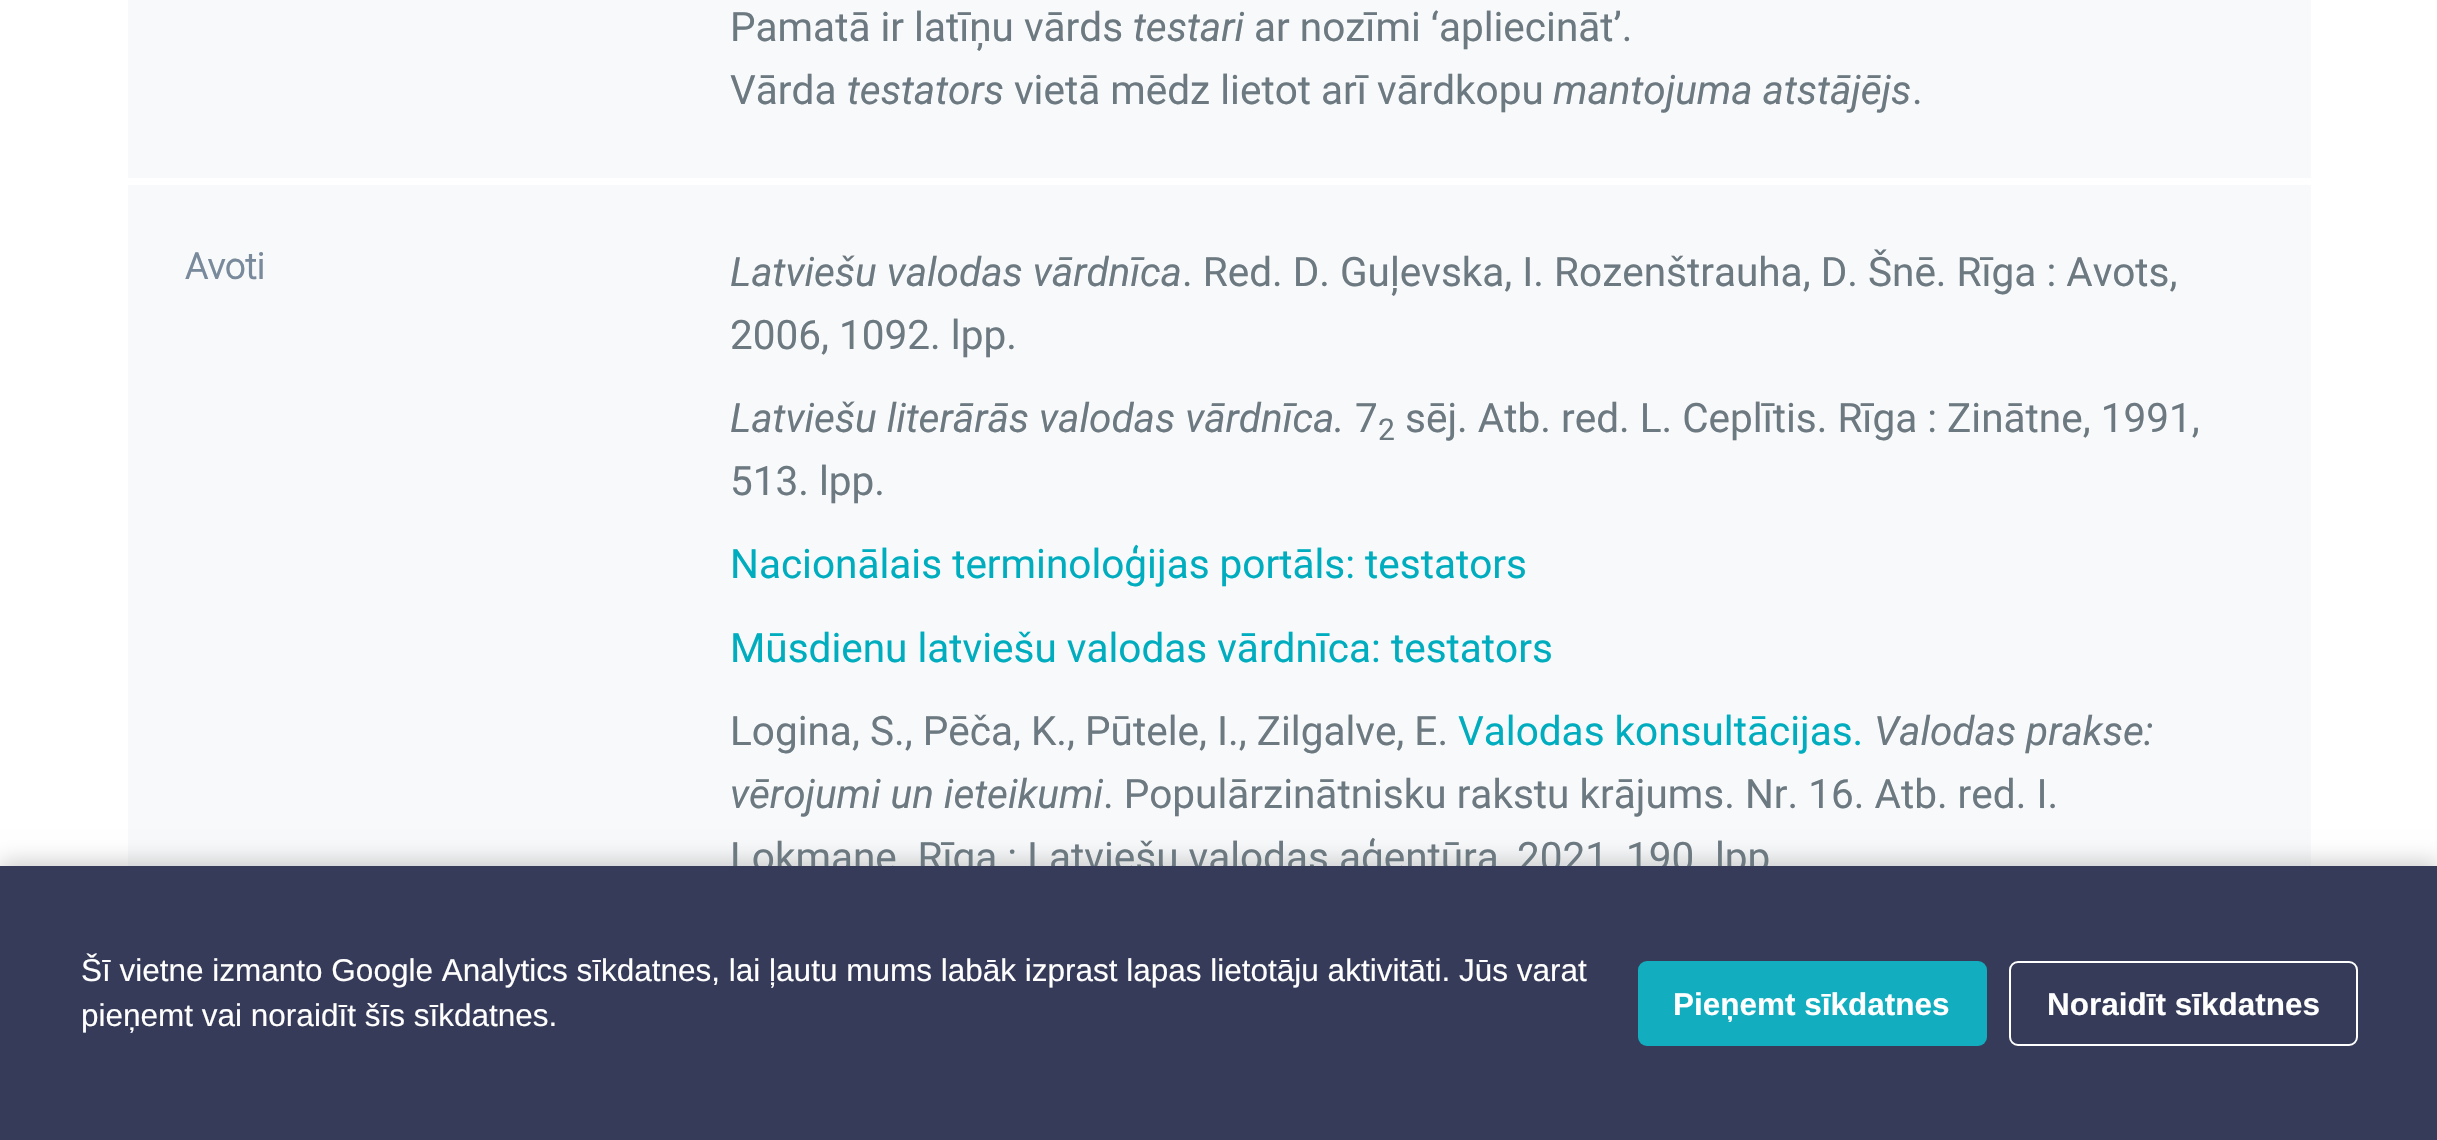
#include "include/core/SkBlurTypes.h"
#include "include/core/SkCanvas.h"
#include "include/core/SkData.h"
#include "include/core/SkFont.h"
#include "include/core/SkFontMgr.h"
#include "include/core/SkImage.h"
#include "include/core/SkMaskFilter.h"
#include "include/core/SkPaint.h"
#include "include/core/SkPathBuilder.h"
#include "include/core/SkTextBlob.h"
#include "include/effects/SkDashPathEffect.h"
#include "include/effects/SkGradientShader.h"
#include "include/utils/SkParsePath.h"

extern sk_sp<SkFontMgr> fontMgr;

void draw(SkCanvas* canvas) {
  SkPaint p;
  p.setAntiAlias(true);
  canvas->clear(SK_ColorWHITE);
  p.setColor(SkColorSetRGB(248, 249, 250));
  canvas->drawRect(SkRect::MakeLTRB(128, 0, 2311, 866), p);
  p.setColor(SK_ColorWHITE);
  canvas->drawRect(SkRect::MakeLTRB(128, 178, 2311, 185), p);
  p.setColor(SkColorSetARGB(51, 0, 0, 0));
  p.setMaskFilter(SkMaskFilter::MakeBlur(kNormal_SkBlurStyle, 11));
  canvas->drawRect(SkRect::MakeLTRB(0, 862, 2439, 1136), p);
  p.setMaskFilter(nullptr);
  SkFont font1(fontMgr->matchFamilyStyle("Roboto", SkFontStyle::Normal()), 40.5f);
  font1.setSubpixel(true);
  p.setColor(SkColorSetRGB(108, 121, 129));
  canvas->drawString("Pamatā ir latīņu vārds", 730, 41, font1, p);
  SkFont font2(fontMgr->matchFamilyStyle("Roboto", SkFontStyle::Italic()), 40.5f);
  font2.setSubpixel(true);
  canvas->drawString("testari", 1133, 41, font2, p);
  canvas->drawString("ar nozīmi ‘apliecināt’.", 1254, 41, font1, p);
  canvas->drawString("Vārda", 730, 104, font1, p);
  canvas->drawString("testators", 847, 104, font2, p);
  canvas->drawString("vietā mēdz lietot arī vārdkopu", 1014, 104, font1, p);
  canvas->drawString("mantojuma atstājējs", 1553, 104, font2, p);
  canvas->drawString(".", 1912, 104, font1, p);
  SkFont font3(fontMgr->matchFamilyStyle("Roboto", SkFontStyle::Bold()), 36);
  font3.setSubpixel(true);
  p.setColor(SkColorSetRGB(120, 138, 155));
  canvas->drawString("Avoti", 185, 279, font3, p);
  p.setColor(SkColorSetRGB(108, 121, 129));
  canvas->drawString("Latviešu valodas vārdnīca", 730, 286, font2, p);
  canvas->drawString(". Red. D. Guļevska, I. Rozenštrauha, D. Šnē. Rīga : Avots,", 1182, 286, font1, p);
  canvas->drawString("2006, 1092. lpp.", 730, 349, font1, p);
  canvas->drawString("Latviešu literārās valodas vārdnīca.", 730, 432, font2, p);
  canvas->drawString("7", 1355, 432, font1, p);
  SkFont font4(fontMgr->matchFamilyStyle("Roboto", SkFontStyle::Normal()), 30);
  font4.setSubpixel(true);
  canvas->drawString("2", 1378, 440, font4, p);
  canvas->drawString("sēj. Atb. red. L. Ceplītis. Rīga : Zinātne, 1991,", 1405, 432, font1, p);
  canvas->drawString("513. lpp.", 730, 495, font1, p);
  p.setColor(SkColorSetRGB(0, 173, 191));
  canvas->drawString("Nacionālais terminoloģijas portāls: testators", 730, 578, font1, p);
  canvas->drawString("Mūsdienu latviešu valodas vārdnīca: testators", 730, 662, font1, p);
  p.setColor(SkColorSetRGB(108, 121, 129));
  canvas->drawString("Logina, S., Pēča, K., Pūtele, I., Zilgalve, E.", 730, 745, font1, p);
  p.setColor(SkColorSetRGB(0, 173, 191));
  canvas->drawString("Valodas konsultācijas.", 1458, 745, font1, p);
  p.setColor(SkColorSetRGB(108, 121, 129));
  canvas->drawString("Valodas prakse:", 1874, 745, font2, p);
  canvas->drawString("vērojumi un ieteikumi", 730, 808, font2, p);
  canvas->drawString(". Populārzinātnisku rakstu krājums. Nr. 16. Atb. red. I.", 1103, 808, font1, p);
  canvas->drawString("Lokmane. Rīga : Latviešu valodas aģentūra, 2021", 730, 871, font1, p);
  canvas->drawString("190. lpp", 1626, 871, font1, p);
  p.setColor(SkColorSetRGB(54, 59, 89));
  canvas->drawRect(SkRect::MakeLTRB(0, 866, 2437, 1140), p);
  SkFont font5(fontMgr->matchFamilyStyle("Liberation Sans", SkFontStyle::Normal()), 31.5f);
  font5.setSubpixel(true);
  p.setColor(SK_ColorWHITE);
  canvas->drawString("Šī vietne izmanto Google Analytics sīkdatnes, lai ļautu mums labāk izprast lapas lietotāju aktivitāti. Jūs varat", 81, 981, font5, p);
  canvas->drawString("pieņemt vai noraidīt šīs sīkdatnes.", 81, 1026, font5, p);
  p.setColor(SkColorSetRGB(18, 173, 191));
  canvas->drawRoundRect(SkRect::MakeLTRB(1638, 961, 1987, 1046), 9, 9, p);
  SkFont font6(fontMgr->matchFamilyStyle("Liberation Sans", SkFontStyle::Bold()), 31.5f);
  font6.setSubpixel(true);
  p.setColor(SK_ColorWHITE);
  canvas->drawString("Pieņemt sīkdatnes", 1673, 1015, font6, p);
  p.setStyle(SkPaint::kStroke_Style);
  p.setStrokeWidth(2);
  canvas->drawRoundRect(SkRect::MakeLTRB(2010, 962, 2357, 1045), 8, 8, p);
  p.setStyle(SkPaint::kFill_Style);
  canvas->drawString("Noraidīt sīkdatnes", 2047, 1015, font6, p);
}
